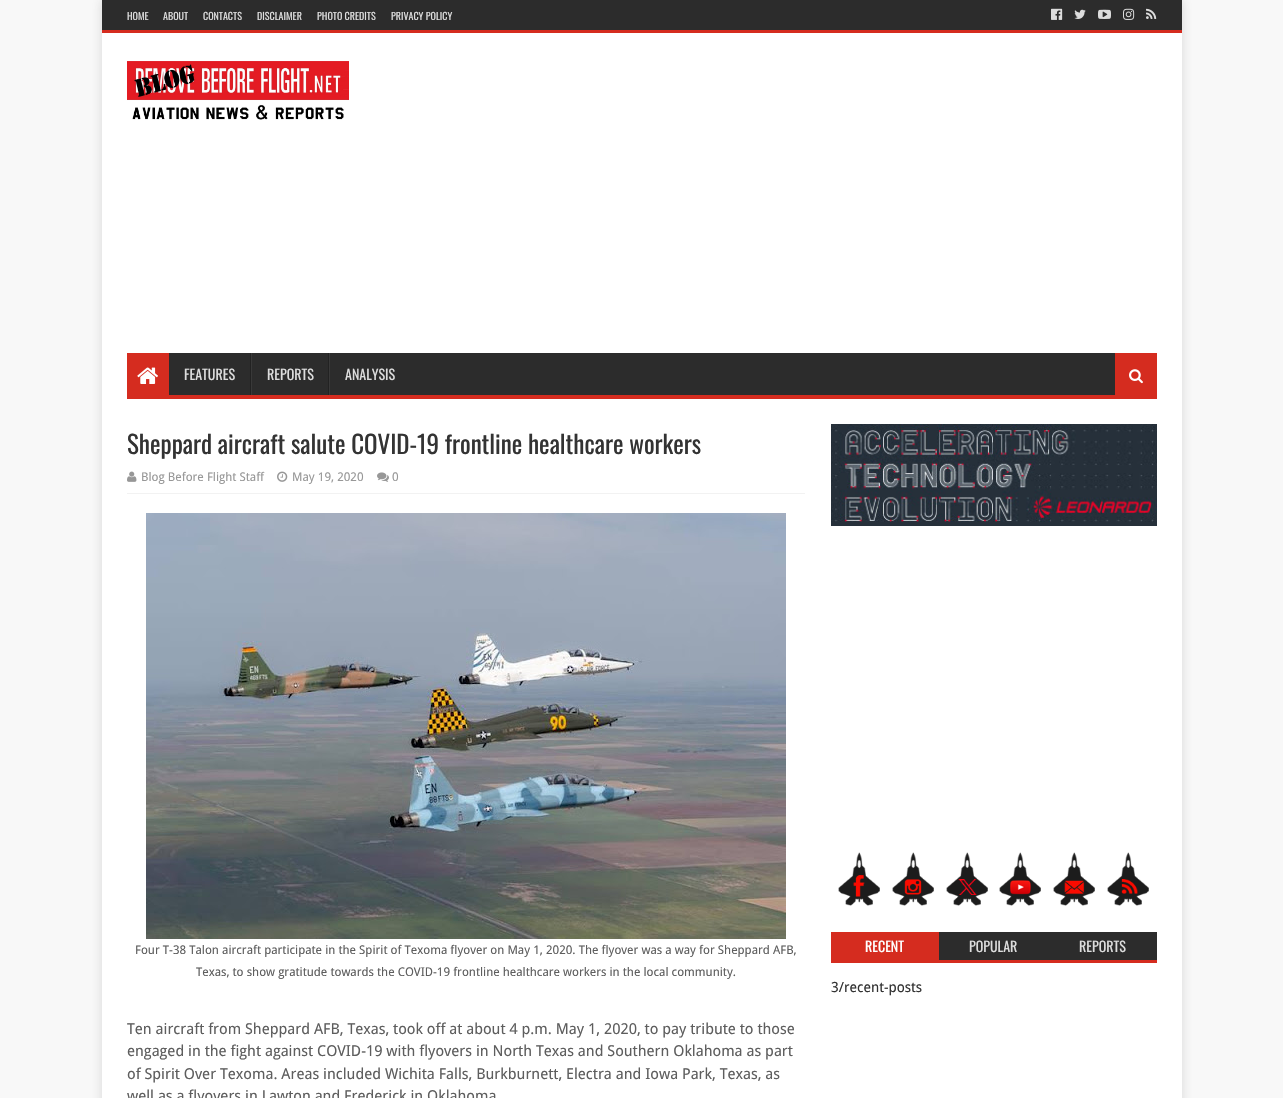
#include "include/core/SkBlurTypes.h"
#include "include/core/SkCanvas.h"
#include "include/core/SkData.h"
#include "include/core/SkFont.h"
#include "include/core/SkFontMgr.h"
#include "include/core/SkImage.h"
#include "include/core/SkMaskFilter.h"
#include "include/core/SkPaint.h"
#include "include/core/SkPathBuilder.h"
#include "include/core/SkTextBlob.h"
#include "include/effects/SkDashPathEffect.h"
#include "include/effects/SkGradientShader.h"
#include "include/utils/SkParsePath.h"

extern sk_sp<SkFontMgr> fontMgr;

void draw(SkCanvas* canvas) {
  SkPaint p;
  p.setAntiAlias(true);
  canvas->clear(SkColorSetRGB(248, 248, 248));
  p.setColor(SkColorSetARGB(43, 50, 50, 50));
  p.setMaskFilter(SkMaskFilter::MakeBlur(kNormal_SkBlurStyle, 5));
  canvas->drawRect(SkRect::MakeLTRB(102, 0, 1182, 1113), p);
  p.setMaskFilter(nullptr);
  p.setColor(SK_ColorWHITE);
  canvas->drawRect(SkRect::MakeLTRB(102, 33, 1182, 1098), p);
  p.setColor(SkColorSetRGB(44, 44, 44));
  canvas->drawRect(SkRect::MakeLTRB(102, 0, 1182, 30), p);
  p.setColor(SkColorSetRGB(213, 44, 31));
  canvas->drawRect(SkRect::MakeLTRB(102, 30, 1182, 33), p);
  canvas->drawImageRect(SkImages::DeferredFromEncodedData(SkData::MakeFromFileName("images/1.png")), SkRect::MakeLTRB(1051, 8, 1063, 20), SkSamplingOptions());
  canvas->drawImageRect(SkImages::DeferredFromEncodedData(SkData::MakeFromFileName("images/2.png")), SkRect::MakeLTRB(1074, 9, 1086, 19), SkSamplingOptions());
  canvas->drawImageRect(SkImages::DeferredFromEncodedData(SkData::MakeFromFileName("images/3.png")), SkRect::MakeLTRB(1098, 9, 1111, 19), SkSamplingOptions());
  canvas->drawImageRect(SkImages::DeferredFromEncodedData(SkData::MakeFromFileName("images/4.png")), SkRect::MakeLTRB(1123, 8, 1135, 20), SkSamplingOptions());
  canvas->drawImageRect(SkImages::DeferredFromEncodedData(SkData::MakeFromFileName("images/5.png")), SkRect::MakeLTRB(1146, 8, 1157, 19), SkSamplingOptions());
  canvas->drawImageRect(SkImages::DeferredFromEncodedData(SkData::MakeFromFileName("images/6.png")), SkRect::MakeLTRB(127, 61, 349, 120), SkSamplingOptions());
  p.setColor(SkColorSetRGB(44, 44, 44));
  canvas->drawRect(SkRect::MakeLTRB(169, 353, 1115, 395), p);
  p.setColor(SkColorSetRGB(213, 44, 31));
  canvas->drawRect(SkRect::MakeLTRB(127, 395, 1157, 399), p);
  canvas->drawRect(SkRect::MakeLTRB(127, 353, 169, 395), p);
  canvas->drawImageRect(SkImages::DeferredFromEncodedData(SkData::MakeFromFileName("images/7.png")), SkRect::MakeLTRB(137, 367, 158, 384), SkSamplingOptions());
  p.setColor(SkColorSetRGB(34, 34, 34));
  canvas->drawRect(SkRect::MakeLTRB(250, 353, 251, 395), p);
  canvas->drawRect(SkRect::MakeLTRB(328, 353, 329, 395), p);
  p.setColor(SkColorSetRGB(57, 57, 57));
  canvas->drawRect(SkRect::MakeLTRB(251, 353, 252, 395), p);
  canvas->drawRect(SkRect::MakeLTRB(329, 353, 330, 395), p);
  p.setColor(SkColorSetRGB(213, 44, 31));
  canvas->drawRect(SkRect::MakeLTRB(1115, 353, 1157, 395), p);
  canvas->drawImageRect(SkImages::DeferredFromEncodedData(SkData::MakeFromFileName("images/8.png")), SkRect::MakeLTRB(1129, 369, 1143, 384), SkSamplingOptions());
  p.setColor(SkColorSetRGB(242, 242, 242));
  canvas->drawRect(SkRect::MakeLTRB(127, 493, 805, 494), p);
  canvas->drawImageRect(SkImages::DeferredFromEncodedData(SkData::MakeFromFileName("images/9.png")), SkRect::MakeLTRB(127, 471, 137, 482), SkSamplingOptions());
  canvas->drawImageRect(SkImages::DeferredFromEncodedData(SkData::MakeFromFileName("images/10.png")), SkRect::MakeLTRB(277, 471, 288, 482), SkSamplingOptions());
  canvas->drawImageRect(SkImages::DeferredFromEncodedData(SkData::MakeFromFileName("images/11.png")), SkRect::MakeLTRB(377, 472, 389, 482), SkSamplingOptions());
  canvas->drawImageRect(SkImages::DeferredFromEncodedData(SkData::MakeFromFileName("images/12.png")), SkRect::MakeLTRB(146, 513, 786, 939), SkSamplingOptions());
  canvas->drawImageRect(SkImages::DeferredFromEncodedData(SkData::MakeFromFileName("images/13.png")), SkRect::MakeLTRB(831, 424, 1157, 526), SkSamplingOptions());
  canvas->drawImageRect(SkImages::DeferredFromEncodedData(SkData::MakeFromFileName("images/14.png")), SkRect::MakeLTRB(838, 852, 880, 906), SkSamplingOptions());
  canvas->drawImageRect(SkImages::DeferredFromEncodedData(SkData::MakeFromFileName("images/15.png")), SkRect::MakeLTRB(892, 852, 934, 906), SkSamplingOptions());
  canvas->drawImageRect(SkImages::DeferredFromEncodedData(SkData::MakeFromFileName("images/16.png")), SkRect::MakeLTRB(946, 852, 988, 906), SkSamplingOptions());
  canvas->drawImageRect(SkImages::DeferredFromEncodedData(SkData::MakeFromFileName("images/17.png")), SkRect::MakeLTRB(999, 852, 1041, 906), SkSamplingOptions());
  canvas->drawImageRect(SkImages::DeferredFromEncodedData(SkData::MakeFromFileName("images/18.png")), SkRect::MakeLTRB(1053, 852, 1095, 906), SkSamplingOptions());
  canvas->drawImageRect(SkImages::DeferredFromEncodedData(SkData::MakeFromFileName("images/19.png")), SkRect::MakeLTRB(1107, 852, 1149, 906), SkSamplingOptions());
  p.setColor(SkColorSetRGB(44, 44, 44));
  canvas->drawRect(SkRect::MakeLTRB(939, 932, 1157, 960), p);
  p.setColor(SkColorSetRGB(213, 44, 31));
  canvas->drawRect(SkRect::MakeLTRB(831, 960, 1157, 963), p);
  canvas->drawRect(SkRect::MakeLTRB(831, 932, 939, 960), p);
  SkFont font1(fontMgr->matchFamilyStyle("Oswald", SkFontStyle::Normal()), 10);
  font1.setSubpixel(true);
  p.setColor(SkColorSetRGB(221, 221, 221));
  canvas->drawString("HOME", 127, 20, font1, p);
  canvas->drawString("ABOUT", 163, 20, font1, p);
  canvas->drawString("CONTACTS", 203, 20, font1, p);
  canvas->drawString("DISCLAIMER", 257, 20, font1, p);
  canvas->drawString("PHOTO CREDITS", 317, 20, font1, p);
  canvas->drawString("PRIVACY POLICY", 391, 20, font1, p);
  SkFont font2(fontMgr->matchFamilyStyle("Oswald", SkFontStyle::Normal()), 14);
  font2.setSubpixel(true);
  canvas->drawString("FEATURES", 184, 380, font2, p);
  canvas->drawString("REPORTS", 267, 380, font2, p);
  canvas->drawString("ANALYSIS", 345, 380, font2, p);
  SkFont font3(fontMgr->matchFamilyStyle("Oswald", SkFontStyle::Normal()), 25);
  font3.setSubpixel(true);
  p.setColor(SkColorSetRGB(51, 51, 51));
  canvas->drawString("Sheppard aircraft salute COVID-19 frontline healthcare workers", 127, 454, font3, p);
  SkFont font4(fontMgr->matchFamilyStyle("Droid Sans", SkFontStyle::Normal()), 12);
  font4.setSubpixel(true);
  p.setColor(SkColorSetRGB(151, 151, 151));
  canvas->drawString("Blog Before Flight Staff", 141, 481, font4, p);
  canvas->drawString("May 19, 2020", 292, 481, font4, p);
  canvas->drawString("0", 392, 481, font4, p);
  p.setColor(SkColorSetRGB(94, 94, 94));
  canvas->drawString("Four T-38 Talon aircraft participate in the Spirit of Texoma flyover on May 1, 2020. The flyover was a way for Sheppard AFB,", 135, 954, font4, p);
  canvas->drawString("Texas, to show gratitude towards the COVID-19 frontline healthcare workers in the local community.", 196, 976, font4, p);
  SkFont font5(fontMgr->matchFamilyStyle("Droid Sans", SkFontStyle::Normal()), 15);
  font5.setSubpixel(true);
  canvas->drawString("Ten aircraft from Sheppard AFB, Texas, took off at about 4 p.m. May 1, 2020, to pay tribute to those", 127, 1034, font5, p);
  canvas->drawString("engaged in the fight against COVID-19 with flyovers in North Texas and Southern Oklahoma as part", 127, 1056, font5, p);
  canvas->drawString("of Spirit Over Texoma. Areas included Wichita Falls, Burkburnett, Electra and Iowa Park, Texas, as", 127, 1079, font5, p);
  canvas->drawString("well as a flyovers in Lawton and Frederick in Oklahoma", 127, 1101, font5, p);
  p.setColor(SK_ColorWHITE);
  canvas->drawString("RECENT", 865, 952, font2, p);
  p.setColor(SkColorSetRGB(221, 221, 221));
  canvas->drawString("POPULAR", 969, 952, font2, p);
  canvas->drawString("REPORTS", 1079, 952, font2, p);
  SkFont font6(fontMgr->matchFamilyStyle("Droid Sans", SkFontStyle::Normal()), 14);
  font6.setSubpixel(true);
  p.setColor(SkColorSetRGB(51, 51, 51));
  canvas->drawString("3/recent-posts", 831, 992, font6, p);
}
